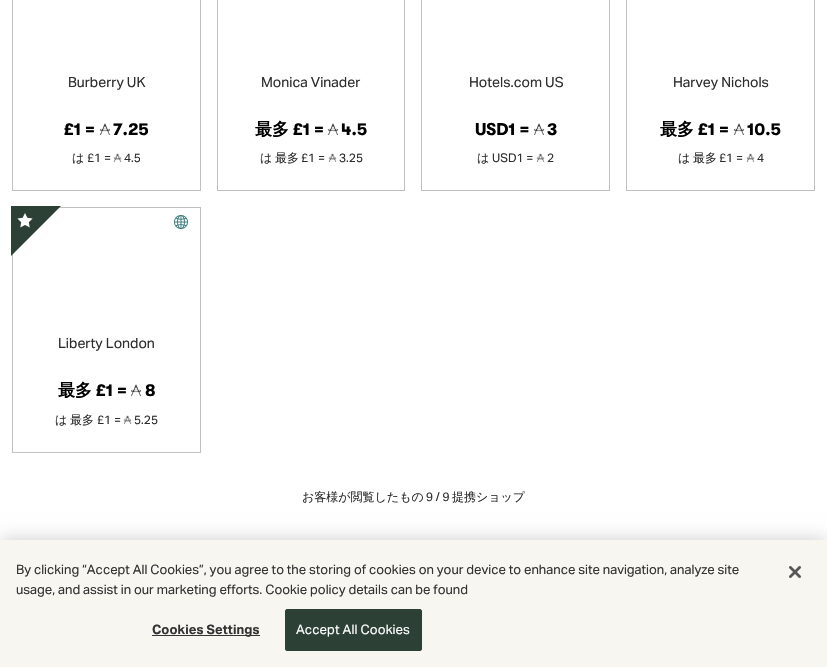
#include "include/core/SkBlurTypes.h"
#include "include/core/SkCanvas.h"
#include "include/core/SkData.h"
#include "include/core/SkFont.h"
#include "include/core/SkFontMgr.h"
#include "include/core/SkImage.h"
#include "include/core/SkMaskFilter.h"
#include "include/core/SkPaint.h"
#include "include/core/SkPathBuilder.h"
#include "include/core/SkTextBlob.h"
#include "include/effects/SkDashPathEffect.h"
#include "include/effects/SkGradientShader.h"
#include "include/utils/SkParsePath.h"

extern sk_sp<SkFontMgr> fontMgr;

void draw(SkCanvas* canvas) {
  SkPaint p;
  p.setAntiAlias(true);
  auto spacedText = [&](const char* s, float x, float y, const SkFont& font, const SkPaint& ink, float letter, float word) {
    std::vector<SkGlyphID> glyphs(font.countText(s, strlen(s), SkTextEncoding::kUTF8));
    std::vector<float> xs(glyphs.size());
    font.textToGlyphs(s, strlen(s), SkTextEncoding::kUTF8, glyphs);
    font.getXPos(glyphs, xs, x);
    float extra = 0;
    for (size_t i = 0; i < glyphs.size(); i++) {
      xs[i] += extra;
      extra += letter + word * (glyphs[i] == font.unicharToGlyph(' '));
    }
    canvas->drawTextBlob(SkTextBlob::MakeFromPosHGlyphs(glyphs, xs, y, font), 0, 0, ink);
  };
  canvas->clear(SK_ColorWHITE);
  p.setStyle(SkPaint::kStroke_Style);
  p.setStrokeWidth(1);
  p.setColor(SkColorSetRGB(192, 192, 192));
  canvas->drawRect(SkRect::MakeLTRB(12.5f, -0.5f, 200.5f, 190.5f), p);
  canvas->drawImageRect(SkImages::DeferredFromEncodedData(SkData::MakeFromFileName("images/1.png")), SkRect::MakeLTRB(99, 123, 111, 135), SkSamplingOptions());
  canvas->drawImageRect(SkImages::DeferredFromEncodedData(SkData::MakeFromFileName("images/2.png")), SkRect::MakeLTRB(113, 153, 122, 162), SkSamplingOptions());
  canvas->drawRect(SkRect::MakeLTRB(217.5f, -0.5f, 404.5f, 190.5f), p);
  canvas->drawImageRect(SkImages::DeferredFromEncodedData(SkData::MakeFromFileName("images/3.png")), SkRect::MakeLTRB(327, 123, 339, 135), SkSamplingOptions());
  canvas->drawImageRect(SkImages::DeferredFromEncodedData(SkData::MakeFromFileName("images/2.png")), SkRect::MakeLTRB(328, 153, 337, 162), SkSamplingOptions());
  canvas->drawRect(SkRect::MakeLTRB(421.5f, -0.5f, 609.5f, 190.5f), p);
  canvas->drawImageRect(SkImages::DeferredFromEncodedData(SkData::MakeFromFileName("images/3.png")), SkRect::MakeLTRB(533, 123, 545, 135), SkSamplingOptions());
  canvas->drawImageRect(SkImages::DeferredFromEncodedData(SkData::MakeFromFileName("images/4.png")), SkRect::MakeLTRB(536, 153, 545, 162), SkSamplingOptions());
  canvas->drawRect(SkRect::MakeLTRB(626.5f, -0.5f, 814.5f, 190.5f), p);
  canvas->drawImageRect(SkImages::DeferredFromEncodedData(SkData::MakeFromFileName("images/1.png")), SkRect::MakeLTRB(733, 123, 745, 135), SkSamplingOptions());
  canvas->drawImageRect(SkImages::DeferredFromEncodedData(SkData::MakeFromFileName("images/2.png")), SkRect::MakeLTRB(746, 153, 755, 162), SkSamplingOptions());
  canvas->drawRect(SkRect::MakeLTRB(12.5f, 207.5f, 200.5f, 452.5f), p);
  p.setStyle(SkPaint::kFill_Style);
  p.setColor(SkColorSetRGB(44, 64, 54));
  canvas->drawPath(SkPathBuilder().moveTo(11, 206).lineTo(61, 206).lineTo(11, 256).close().detach(), p);
  canvas->drawImageRect(SkImages::DeferredFromEncodedData(SkData::MakeFromFileName("images/5.png")), SkRect::MakeLTRB(17, 213, 33, 228), SkSamplingOptions());
  canvas->drawImageRect(SkImages::DeferredFromEncodedData(SkData::MakeFromFileName("images/6.png")), SkRect::MakeLTRB(174, 215, 188, 229), SkSamplingOptions());
  canvas->drawImageRect(SkImages::DeferredFromEncodedData(SkData::MakeFromFileName("images/3.png")), SkRect::MakeLTRB(130, 384, 142, 396), SkSamplingOptions());
  canvas->drawImageRect(SkImages::DeferredFromEncodedData(SkData::MakeFromFileName("images/4.png")), SkRect::MakeLTRB(123, 415, 132, 424), SkSamplingOptions());
  p.setColor(SkColorSetARGB(51, 0, 0, 0));
  p.setMaskFilter(SkMaskFilter::MakeBlur(kNormal_SkBlurStyle, 9));
  canvas->drawRect(SkRect::MakeLTRB(0, 540, 827, 667), p);
  p.setMaskFilter(nullptr);
  p.setColor(SkColorSetRGB(247, 246, 241));
  canvas->drawRect(SkRect::MakeLTRB(0, 540, 827, 667), p);
  p.setColor(SkColorSetRGB(51, 51, 51));
  canvas->drawRect(SkRect::MakeLTRB(152, 635, 260, 636), p);
  p.setColor(SkColorSetRGB(44, 64, 54));
  canvas->drawRoundRect(SkRect::MakeLTRB(285.5f, 609.5f, 421.5f, 650.5f), 1.5f, 1.5f, p);
  p.setStyle(SkPaint::kStroke_Style);
  canvas->drawRoundRect(SkRect::MakeLTRB(285.5f, 609.5f, 421.5f, 650.5f), 1.5f, 1.5f, p);
  canvas->drawImageRect(SkImages::DeferredFromEncodedData(SkData::MakeFromFileName("images/7.png")), SkRect::MakeLTRB(789, 566, 801, 578), SkSamplingOptions());
  SkFont font1(fontMgr->matchFamilyStyle("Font", SkFontStyle::Normal()), 14);
  font1.setSubpixel(true);
  p.setStyle(SkPaint::kFill_Style);
  p.setColor(SkColorSetRGB(45, 45, 45));
  canvas->drawString("Burberry UK", 68, 87, font1, p);
  SkFont font2(fontMgr->matchFamilyStyle("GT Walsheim", SkFontStyle::Bold()), 17);
  font2.setSubpixel(true);
  p.setColor(SK_ColorBLACK);
  canvas->drawString("£1 =", 64, 135, font2, p);
  canvas->drawString("7.25", 113, 135, font2, p);
  SkFont font3(fontMgr->matchFamilyStyle("WenQuanYi Zen Hei", SkFontStyle(500, SkFontStyle::kNormal_Width, SkFontStyle::kUpright_Slant)), 12);
  font3.setSubpixel(true);
  p.setColor(SkColorSetRGB(45, 45, 45));
  canvas->drawString("は", 72, 162, font3, p);
  SkFont font4(fontMgr->matchFamilyStyle("Font", SkFontStyle::Normal()), 12);
  font4.setSubpixel(true);
  canvas->drawString("£1 =", 87, 162, font4, p);
  canvas->drawString("4.5", 124, 162, font4, p);
  canvas->drawString("Monica Vinader", 261, 87, font1, p);
  SkFont font5(fontMgr->matchFamilyStyle("WenQuanYi Zen Hei", SkFontStyle::Bold()), 17);
  font5.setSubpixel(true);
  p.setColor(SK_ColorBLACK);
  canvas->drawString("最多", 255, 135, font5, p);
  canvas->drawString("£1 =", 293, 135, font2, p);
  canvas->drawString("4.5", 341, 135, font2, p);
  p.setColor(SkColorSetRGB(45, 45, 45));
  canvas->drawString("は", 260, 162, font3, p);
  canvas->drawString("最多", 275, 162, font3, p);
  canvas->drawString("£1 =", 301, 162, font4, p);
  canvas->drawString("3.25", 339, 162, font4, p);
  canvas->drawString("Hotels.com US", 469, 87, font1, p);
  p.setColor(SK_ColorBLACK);
  canvas->drawString("USD1 =", 475, 135, font2, p);
  canvas->drawString("3", 547, 135, font2, p);
  p.setColor(SkColorSetRGB(45, 45, 45));
  canvas->drawString("は", 477, 162, font3, p);
  canvas->drawString("USD1 =", 492, 162, font4, p);
  canvas->drawString("2", 547, 162, font4, p);
  canvas->drawString("Harvey Nichols", 673, 87, font1, p);
  p.setColor(SK_ColorBLACK);
  canvas->drawString("最多", 660, 135, font5, p);
  canvas->drawString("£1 =", 698, 135, font2, p);
  canvas->drawString("10.5", 747, 135, font2, p);
  p.setColor(SkColorSetRGB(45, 45, 45));
  canvas->drawString("は", 678, 162, font3, p);
  canvas->drawString("最多", 693, 162, font3, p);
  canvas->drawString("£1 =", 719, 162, font4, p);
  canvas->drawString("4", 757, 162, font4, p);
  canvas->drawString("Liberty London", 58, 348, font1, p);
  p.setColor(SK_ColorBLACK);
  canvas->drawString("最多", 58, 396, font5, p);
  canvas->drawString("£1 =", 96, 396, font2, p);
  canvas->drawString("8", 145, 396, font2, p);
  p.setColor(SkColorSetRGB(45, 45, 45));
  canvas->drawString("は", 55, 424, font3, p);
  canvas->drawString("最多", 70, 424, font3, p);
  canvas->drawString("£1 =", 97, 424, font4, p);
  canvas->drawString("5.25", 134, 424, font4, p);
  canvas->drawString("お客様が閲覧したもの", 302, 501, font3, p);
  canvas->drawString("9 / 9", 426, 501, font4, p);
  canvas->drawString("提携ショップ", 452, 501, font3, p);
  SkFont font6(fontMgr->matchFamilyStyle("Font", SkFontStyle::Normal()), 13);
  font6.setSubpixel(true);
  p.setColor(SkColorSetRGB(51, 51, 51));
  canvas->drawString("By clicking “Accept All Cookies”, you agree to the storing of cookies on your device to enhance site navigation, analyze site", 16, 574, font6, p);
  canvas->drawString("usage, and assist in our marketing efforts. Cookie policy details can be found", 16, 594, font6, p);
  SkFont font7(fontMgr->matchFamilyStyle("Font", SkFontStyle::Bold()), 13);
  font7.setSubpixel(true);
  spacedText("Cookies Settings", 152, 634, font7, p, 0.1f, 0);
  p.setColor(SK_ColorWHITE);
  spacedText("Accept All Cookies", 296, 634, font6, p, 0.1f, 0);
}
